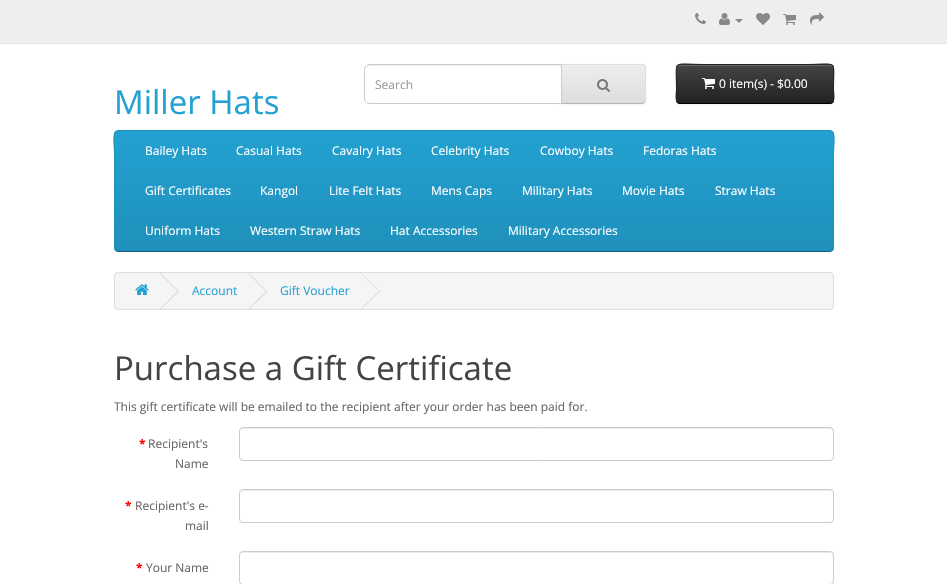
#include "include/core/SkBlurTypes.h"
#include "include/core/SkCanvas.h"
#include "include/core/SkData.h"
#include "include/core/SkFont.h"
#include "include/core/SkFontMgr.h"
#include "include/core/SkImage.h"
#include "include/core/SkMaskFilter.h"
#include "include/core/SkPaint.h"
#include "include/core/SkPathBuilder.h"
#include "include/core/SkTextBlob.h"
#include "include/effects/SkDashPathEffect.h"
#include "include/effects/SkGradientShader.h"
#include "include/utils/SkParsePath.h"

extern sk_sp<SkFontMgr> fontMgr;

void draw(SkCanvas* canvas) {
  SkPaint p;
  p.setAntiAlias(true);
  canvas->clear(SK_ColorWHITE);
  p.setColor(SkColorSetRGB(238, 238, 238));
  canvas->drawRect(SkRect::MakeLTRB(0, 0, 947, 43), p);
  p.setColor(SkColorSetRGB(226, 226, 226));
  canvas->drawRect(SkRect::MakeLTRB(0, 43, 947, 44), p);
  canvas->drawImageRect(SkImages::DeferredFromEncodedData(SkData::MakeFromFileName("images/1.png")), SkRect::MakeLTRB(695, 13, 706, 24), SkSamplingOptions());
  canvas->drawImageRect(SkImages::DeferredFromEncodedData(SkData::MakeFromFileName("images/2.png")), SkRect::MakeLTRB(719, 13, 730, 25), SkSamplingOptions());
  p.setColor(SkColorSetRGB(136, 136, 136));
  canvas->drawPath(SkPathBuilder().moveTo(735, 19).lineTo(743, 19).lineTo(739, 23).close().detach(), p);
  canvas->drawImageRect(SkImages::DeferredFromEncodedData(SkData::MakeFromFileName("images/3.png")), SkRect::MakeLTRB(756, 13, 770, 25), SkSamplingOptions());
  canvas->drawImageRect(SkImages::DeferredFromEncodedData(SkData::MakeFromFileName("images/4.png")), SkRect::MakeLTRB(783, 14, 796, 25), SkSamplingOptions());
  canvas->drawImageRect(SkImages::DeferredFromEncodedData(SkData::MakeFromFileName("images/5.png")), SkRect::MakeLTRB(810, 12, 824, 25), SkSamplingOptions());
  p.setColor(SkColorSetARGB(13, 0, 0, 0));
  p.setMaskFilter(SkMaskFilter::MakeBlur(kNormal_SkBlurStyle, 1));
  canvas->drawRoundRect(SkRect::MakeLTRB(561, 65, 646, 105), 4, 4, p);
  p.setMaskFilter(nullptr);
  p.setColor(SkColorSetRGB(231, 231, 231));
  canvas->drawPath(SkPathBuilder().moveTo(561, 64).lineTo(642, 64).cubicTo(644, 64, 646, 66, 646, 68).lineTo(646, 100).cubicTo(646, 102, 644, 104, 642, 104).lineTo(561, 104).close().detach(), p);
  canvas->save();
  canvas->clipPath(SkPathBuilder().moveTo(561, 64).lineTo(642, 64).cubicTo(644, 64, 646, 66, 646, 68).lineTo(646, 100).cubicTo(646, 102, 644, 104, 642, 104).lineTo(561, 104).close().detach(), true);
  {
    const SkColor colors[] = {SkColorSetRGB(238, 238, 238), SkColorSetRGB(221, 221, 221)};
    const float stops[] = {0, 1};
    const SkPoint ends[] = {{604, 65}, {604, 103}};
    p.setShader(SkGradientShader::MakeLinear(ends, colors, stops, 2, SkTileMode::kClamp));
    p.setAlpha(255);
  }
  canvas->drawRect(SkRect::MakeLTRB(562, 65, 646, 103), p);
  canvas->restore();
  p.setShader(nullptr);
  p.setColor(SkColorSetRGB(241, 241, 241));
  canvas->drawPath(SkPathBuilder().moveTo(562, 66).lineTo(642, 66).cubicTo(644, 66, 645, 67, 645, 69).lineTo(645, 68).cubicTo(645, 66, 644, 65, 642, 65).lineTo(562, 65).close().detach(), p);
  p.setColor(SkColorSetRGB(221, 221, 221));
  canvas->drawPath(SkPathBuilder().moveTo(561, 64).lineTo(562, 65).lineTo(643, 65).lineTo(644, 66).lineTo(645, 65).lineTo(642, 64).close().detach(), p);
  canvas->drawPath(SkPathBuilder().moveTo(646, 100).lineTo(646, 68).cubicTo(646, 67, 645.5f, 66, 645, 65).lineTo(644, 66).cubicTo(645, 66, 645, 67, 645, 68).lineTo(645, 100).cubicTo(645, 101, 645, 102, 644, 102).lineTo(645, 103).cubicTo(645.5f, 102, 646, 101, 646, 100).close().detach(), p);
  p.setColor(SkColorSetRGB(179, 179, 179));
  canvas->drawPath(SkPathBuilder().moveTo(642, 104).lineTo(645, 103).lineTo(644, 102).lineTo(643, 103).lineTo(562, 103).lineTo(561, 104).close().detach(), p);
  p.setColor(SK_ColorWHITE);
  canvas->drawPath(SkPathBuilder().moveTo(370, 64).lineTo(562, 64).lineTo(562, 104).lineTo(370, 104).cubicTo(366.5f, 104, 364, 101.5f, 364, 98).lineTo(364, 70).cubicTo(364, 66.5f, 366.5f, 64, 370, 64).close().detach(), p);
  p.setColor(SkColorSetRGB(236, 236, 236));
  canvas->drawPath(SkPathBuilder().moveTo(370, 66).lineTo(561, 66).lineTo(561, 65).lineTo(369, 65).cubicTo(366, 66, 365, 68, 365, 71).cubicTo(365, 68, 367, 66, 370, 66).close().detach(), p);
  p.setStyle(SkPaint::kStroke_Style);
  p.setStrokeWidth(1);
  p.setColor(SkColorSetRGB(204, 204, 204));
  canvas->drawPath(SkPathBuilder().moveTo(370, 64.5f).lineTo(561.5f, 64.5f).lineTo(561.5f, 103.5f).lineTo(370, 103.5f).cubicTo(367, 103.5f, 364.5f, 101, 364.5f, 98).lineTo(364.5f, 70).cubicTo(364.5f, 67, 367, 64.5f, 370, 64.5f).close().detach(), p);
  canvas->drawImageRect(SkImages::DeferredFromEncodedData(SkData::MakeFromFileName("images/6.png")), SkRect::MakeLTRB(597, 79, 610, 92), SkSamplingOptions());
  p.setStyle(SkPaint::kFill_Style);
  p.setColor(SkColorSetARGB(13, 0, 0, 0));
  p.setMaskFilter(SkMaskFilter::MakeBlur(kNormal_SkBlurStyle, 1));
  canvas->drawRoundRect(SkRect::MakeLTRB(676, 65, 834, 105), 4, 4, p);
  p.setMaskFilter(nullptr);
  p.setColor(SkColorSetRGB(54, 54, 54));
  canvas->drawRoundRect(SkRect::MakeLTRB(676, 64, 834, 104), 4, 4, p);
  canvas->save();
  canvas->clipPath(SkPathBuilder().moveTo(680, 64).lineTo(830, 64).cubicTo(832, 64, 834, 66, 834, 68).lineTo(834, 100).cubicTo(834, 102, 832, 104, 830, 104).lineTo(680, 104).cubicTo(678, 104, 676, 102, 676, 100).lineTo(676, 68).cubicTo(676, 66, 678, 64, 680, 64).close().detach(), true);
  {
    const SkColor colors[] = {SkColorSetRGB(68, 68, 68), SkColorSetRGB(34, 34, 34)};
    const float stops[] = {0, 1};
    const SkPoint ends[] = {{755, 65}, {755, 103}};
    p.setShader(SkGradientShader::MakeLinear(ends, colors, stops, 2, SkTileMode::kClamp));
    p.setAlpha(255);
  }
  canvas->drawRect(SkRect::MakeLTRB(676, 65, 834, 103), p);
  canvas->restore();
  p.setShader(nullptr);
  p.setColor(SkColorSetRGB(105, 105, 105));
  canvas->drawPath(SkPathBuilder().moveTo(680, 66).lineTo(830, 66).cubicTo(832, 66, 833, 67, 833, 69).cubicTo(833, 67, 832, 65, 830, 65).lineTo(679, 65).cubicTo(677, 65, 677, 67, 677, 69).cubicTo(677, 67, 678, 66, 680, 66).close().detach(), p);
  p.setStyle(SkPaint::kStroke_Style);
  p.setColor(SK_ColorBLACK);
  canvas->drawPath(SkPathBuilder().moveTo(832.5f, 102.5f).cubicTo(832, 103, 831, 103.5f, 830, 103.5f).lineTo(680, 103.5f).cubicTo(679, 103.5f, 678, 103, 677.5f, 102.5f).detach(), p);
  p.setColor(SkColorSetRGB(34, 34, 34));
  canvas->drawPath(SkPathBuilder().moveTo(677.5f, 102.5f).cubicTo(675, 100, 676.5f, 92, 676.5f, 89.5f).cubicTo(676.5f, 58, 671, 64.5f, 705, 64.5f).lineTo(805, 64.5f).cubicTo(839, 64.5f, 833.5f, 58, 833.5f, 89.5f).cubicTo(833.5f, 92, 835, 100, 832.5f, 102.5f).detach(), p);
  canvas->drawImageRect(SkImages::DeferredFromEncodedData(SkData::MakeFromFileName("images/7.png")), SkRect::MakeLTRB(702, 78, 715, 89), SkSamplingOptions());
  canvas->save();
  canvas->clipPath(SkPathBuilder().moveTo(118, 130).lineTo(830, 130).cubicTo(832, 130, 834, 132, 834, 134).lineTo(834, 248).cubicTo(834, 250, 832, 252, 830, 252).lineTo(118, 252).cubicTo(116, 252, 114, 250, 114, 248).lineTo(114, 134).cubicTo(114, 132, 116, 130, 118, 130).close().detach(), true);
  p.setStyle(SkPaint::kFill_Style);
  {
    const SkColor colors[] = {SkColorSetRGB(35, 161, 209), SkColorSetRGB(31, 144, 187)};
    const float stops[] = {0, 1};
    const SkPoint ends[] = {{474, 131}, {474, 251}};
    p.setShader(SkGradientShader::MakeLinear(ends, colors, stops, 2, SkTileMode::kClamp));
    p.setAlpha(255);
  }
  canvas->drawRect(SkRect::MakeLTRB(114, 131, 834, 251), p);
  canvas->restore();
  p.setStyle(SkPaint::kStroke_Style);
  p.setShader(nullptr);
  p.setColor(SkColorSetRGB(20, 94, 122));
  canvas->drawPath(SkPathBuilder().moveTo(832.5f, 250.5f).cubicTo(832, 251, 831, 251.5f, 830, 251.5f).lineTo(118, 251.5f).cubicTo(117, 251.5f, 116, 251, 115.5f, 250.5f).detach(), p);
  p.setColor(SkColorSetRGB(31, 144, 187));
  canvas->drawPath(SkPathBuilder().moveTo(115.5f, 250.5f).lineTo(114.5f, 248).lineTo(114.5f, 153).cubicTo(114.5f, 146, 111.5f, 130.5f, 118, 130.5f).lineTo(830, 130.5f).cubicTo(836.5f, 130.5f, 833.5f, 146, 833.5f, 153).lineTo(833.5f, 248).lineTo(832.5f, 250.5f).detach(), p);
  p.setStyle(SkPaint::kFill_Style);
  p.setColor(SkColorSetRGB(245, 245, 245));
  canvas->drawRoundRect(SkRect::MakeLTRB(114.5f, 272.5f, 833.5f, 309.5f), 3.5f, 3.5f, p);
  p.setStyle(SkPaint::kStroke_Style);
  p.setColor(SkColorSetRGB(221, 221, 221));
  canvas->drawRoundRect(SkRect::MakeLTRB(114.5f, 272.5f, 833.5f, 309.5f), 3.5f, 3.5f, p);
  canvas->drawImageRect(SkImages::DeferredFromEncodedData(SkData::MakeFromFileName("images/8.png")), SkRect::MakeLTRB(135, 284, 149, 295), SkSamplingOptions());
  p.setStyle(SkPaint::kFill_Style);
  canvas->drawPath(SkPathBuilder().moveTo(159.5f, 273.5f).lineTo(160.5f, 273).lineTo(179, 291.5f).lineTo(178, 292).close().detach(), p);
  canvas->drawPath(SkPathBuilder().moveTo(159.5f, 309).lineTo(178, 290.5f).lineTo(179, 291.5f).lineTo(160.5f, 309.5f).close().detach(), p);
  canvas->drawPath(SkPathBuilder().moveTo(248, 273.5f).lineTo(249, 273).lineTo(267.5f, 291.5f).lineTo(266.5f, 292).close().detach(), p);
  canvas->drawPath(SkPathBuilder().moveTo(248, 309).lineTo(266.5f, 290.5f).lineTo(267.5f, 291.5f).lineTo(249, 309.5f).close().detach(), p);
  canvas->drawPath(SkPathBuilder().moveTo(361, 273.5f).lineTo(361.5f, 273).lineTo(380, 291.5f).lineTo(379.5f, 292).close().detach(), p);
  canvas->drawPath(SkPathBuilder().moveTo(361, 309).lineTo(379.5f, 290.5f).lineTo(380, 291.5f).lineTo(361.5f, 309.5f).close().detach(), p);
  p.setColor(SkColorSetRGB(236, 236, 236));
  canvas->drawPath(SkPathBuilder().moveTo(243, 429).lineTo(830, 429).cubicTo(832, 429, 833, 430, 833, 432).lineTo(833, 431).cubicTo(833, 429, 832, 428, 830, 428).lineTo(243, 428).cubicTo(241, 428, 240, 429, 240, 431).lineTo(240, 432).cubicTo(240, 430, 241, 429, 243, 429).close().detach(), p);
  p.setStyle(SkPaint::kStroke_Style);
  p.setColor(SkColorSetRGB(204, 204, 204));
  canvas->drawRoundRect(SkRect::MakeLTRB(239.5f, 427.5f, 833.5f, 460.5f), 3.5f, 3.5f, p);
  p.setStyle(SkPaint::kFill_Style);
  p.setColor(SkColorSetRGB(236, 236, 236));
  canvas->drawPath(SkPathBuilder().moveTo(243, 491).lineTo(830, 491).cubicTo(832, 491, 833, 492, 833, 494).lineTo(833, 493).cubicTo(833, 491, 832, 490, 830, 490).lineTo(243, 490).cubicTo(241, 490, 240, 491, 240, 493).lineTo(240, 494).cubicTo(240, 492, 241, 491, 243, 491).close().detach(), p);
  p.setStyle(SkPaint::kStroke_Style);
  p.setColor(SkColorSetRGB(204, 204, 204));
  canvas->drawRoundRect(SkRect::MakeLTRB(239.5f, 489.5f, 833.5f, 522.5f), 3.5f, 3.5f, p);
  p.setStyle(SkPaint::kFill_Style);
  p.setColor(SkColorSetRGB(236, 236, 236));
  canvas->drawPath(SkPathBuilder().moveTo(243, 553).lineTo(830, 553).cubicTo(832, 553, 833, 554, 833, 556).lineTo(833, 555).cubicTo(833, 553, 832, 552, 830, 552).lineTo(243, 552).cubicTo(241, 552, 240, 553, 240, 555).lineTo(240, 556).cubicTo(240, 554, 241, 553, 243, 553).close().detach(), p);
  p.setStyle(SkPaint::kStroke_Style);
  p.setColor(SkColorSetRGB(204, 204, 204));
  canvas->drawRoundRect(SkRect::MakeLTRB(239.5f, 551.5f, 833.5f, 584.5f), 3.5f, 3.5f, p);
  SkFont font1(fontMgr->matchFamilyStyle("Open Sans", SkFontStyle::Normal()), 12);
  font1.setSubpixel(true);
  p.setStyle(SkPaint::kFill_Style);
  p.setColor(SkColorSetRGB(153, 153, 153));
  canvas->drawString("Search", 375, 89, font1, p);
  p.setColor(SK_ColorWHITE);
  canvas->drawString("0 item(s) - $0.00", 719, 88, font1, p);
  SkFont font2(fontMgr->matchFamilyStyle("Open Sans", SkFontStyle::Normal()), 33);
  font2.setSubpixel(true);
  p.setColor(SkColorSetRGB(35, 161, 209));
  canvas->drawString("Miller Hats", 114, 114, font2, p);
  p.setColor(SK_ColorWHITE);
  canvas->drawString("Bailey Hats", 145, 155, font1, p);
  canvas->drawString("Casual Hats", 236, 155, font1, p);
  canvas->drawString("Cavalry Hats", 332, 155, font1, p);
  canvas->drawString("Celebrity Hats", 431, 155, font1, p);
  canvas->drawString("Cowboy Hats", 540, 155, font1, p);
  canvas->drawString("Fedoras Hats", 643, 155, font1, p);
  canvas->drawString("Gift Certificates", 145, 195, font1, p);
  canvas->drawString("Kangol", 260, 195, font1, p);
  canvas->drawString("Lite Felt Hats", 329, 195, font1, p);
  canvas->drawString("Mens Caps", 431, 195, font1, p);
  canvas->drawString("Military Hats", 522, 195, font1, p);
  canvas->drawString("Movie Hats", 622, 195, font1, p);
  canvas->drawString("Straw Hats", 715, 195, font1, p);
  canvas->drawString("Uniform Hats", 145, 235, font1, p);
  canvas->drawString("Western Straw Hats", 250, 235, font1, p);
  canvas->drawString("Hat Accessories", 390, 235, font1, p);
  canvas->drawString("Military Accessories", 508, 235, font1, p);
  p.setColor(SkColorSetRGB(35, 161, 209));
  canvas->drawString("Account", 192, 295, font1, p);
  canvas->drawString("Gift Voucher", 280, 295, font1, p);
  p.setColor(SkColorSetRGB(68, 68, 68));
  canvas->drawString("Purchase a Gift Certificate", 114, 380, font2, p);
  p.setColor(SkColorSetRGB(102, 102, 102));
  canvas->drawString("This gift certificate will be emailed to the recipient after your order has been paid for.", 114, 411, font1, p);
  SkFont font3(fontMgr->matchFamilyStyle("Open Sans", SkFontStyle::Bold()), 12);
  font3.setSubpixel(true);
  p.setColor(SkColorSetRGB(255, 0, 0));
  canvas->drawString("*", 139, 448, font3, p);
  p.setColor(SkColorSetRGB(102, 102, 102));
  canvas->drawString("Recipient's", 148, 448, font1, p);
  canvas->drawString("Name", 175, 468, font1, p);
  p.setColor(SkColorSetRGB(255, 0, 0));
  canvas->drawString("*", 125, 510, font3, p);
  p.setColor(SkColorSetRGB(102, 102, 102));
  canvas->drawString("Recipient's e-", 135, 510, font1, p);
  canvas->drawString("mail", 185, 530, font1, p);
  p.setColor(SkColorSetRGB(255, 0, 0));
  canvas->drawString("*", 136, 572, font3, p);
  p.setColor(SkColorSetRGB(102, 102, 102));
  canvas->drawString("Your Name", 146, 572, font1, p);
}
